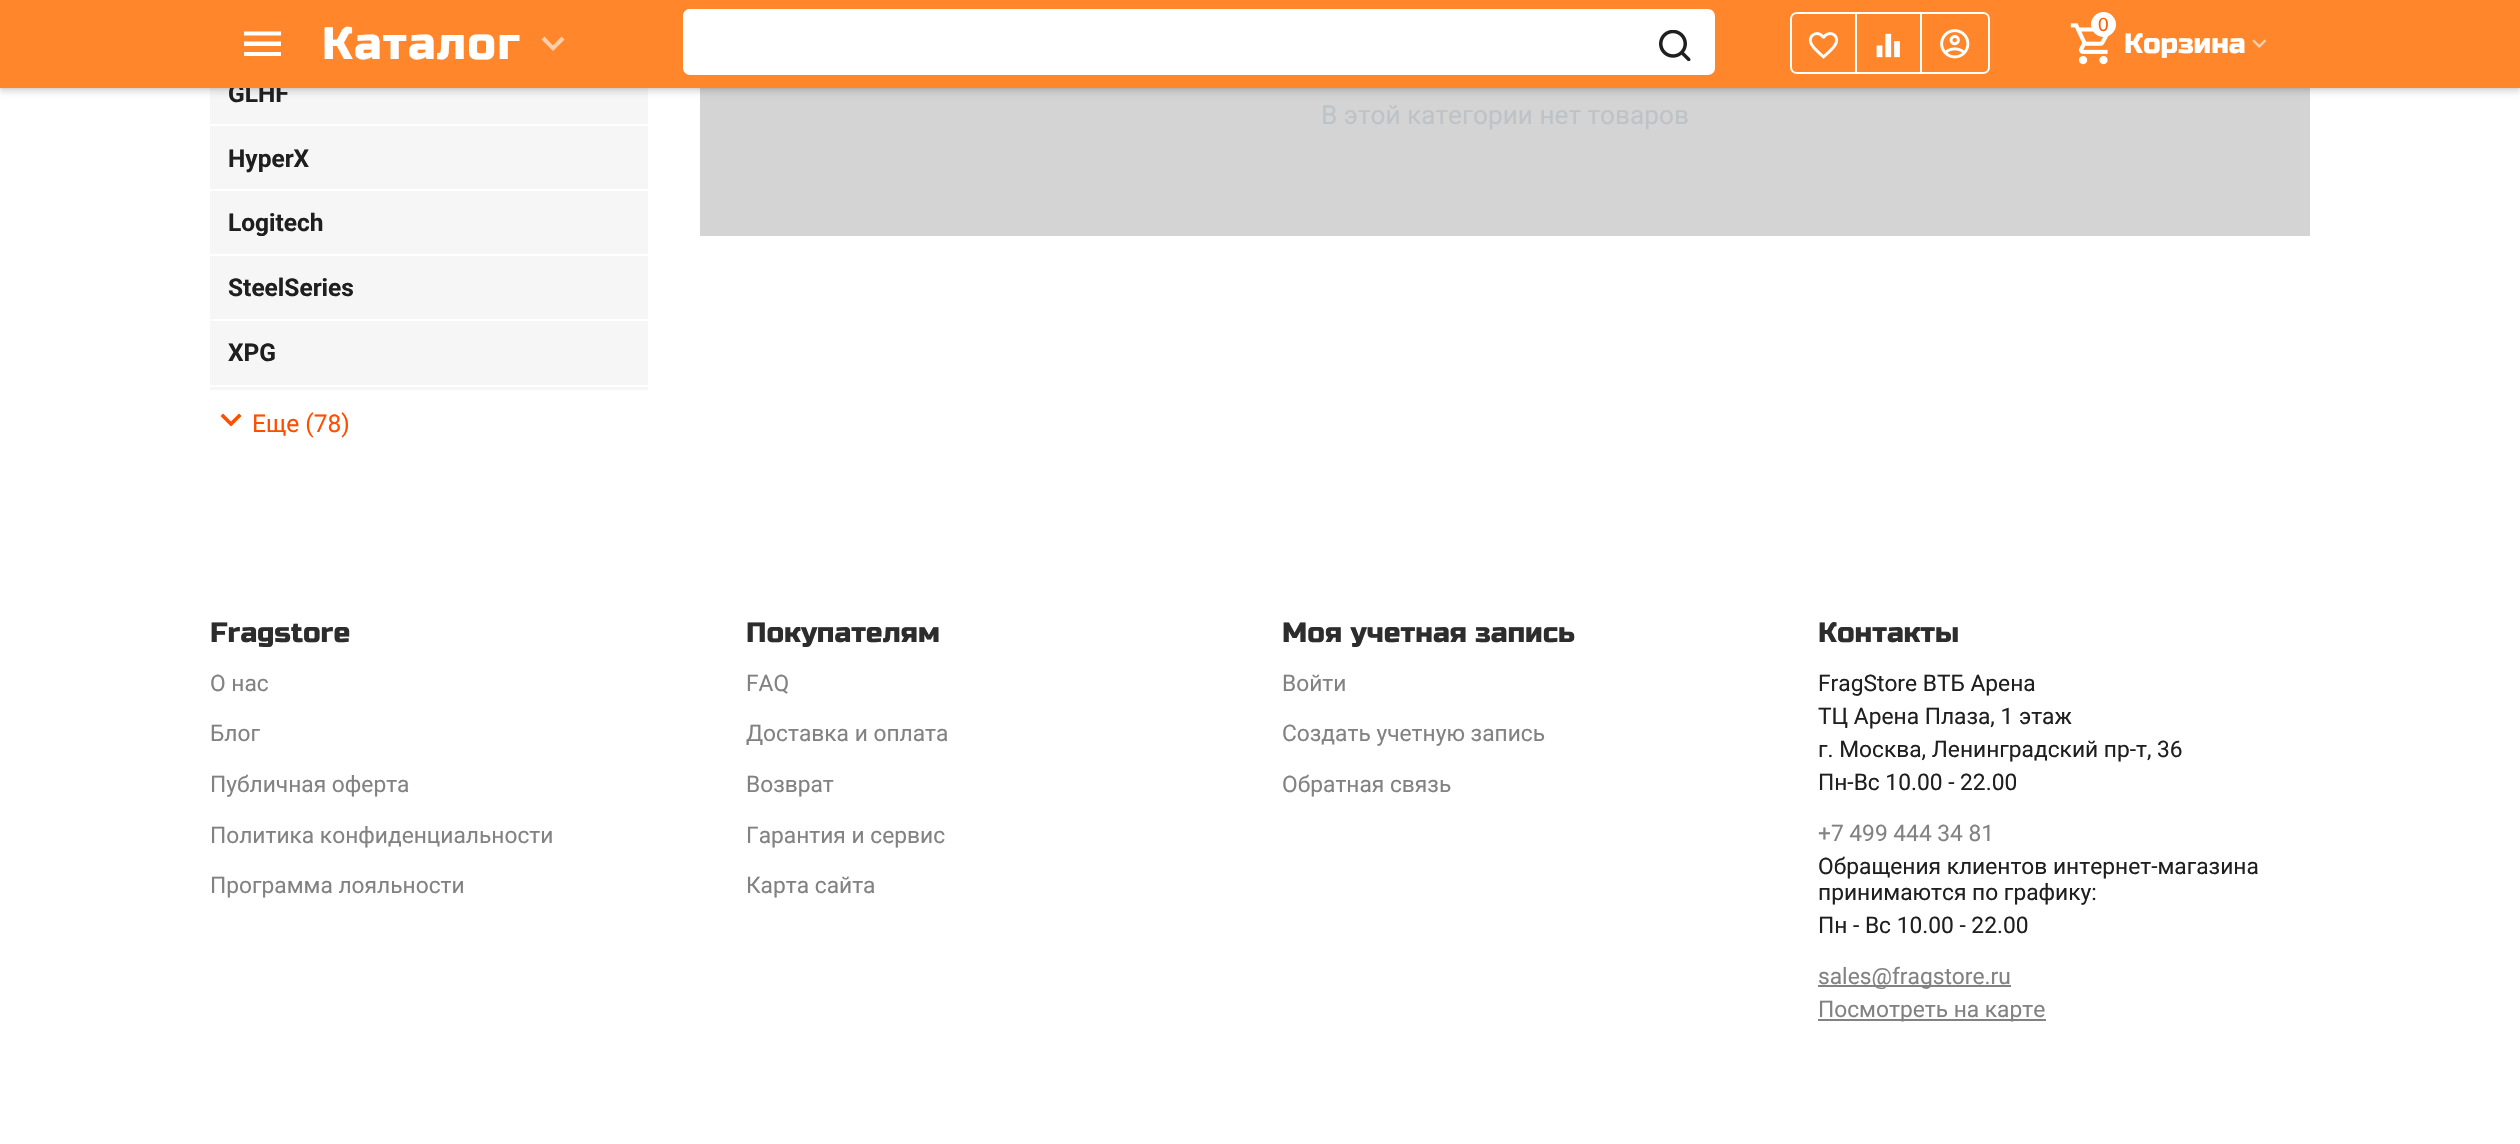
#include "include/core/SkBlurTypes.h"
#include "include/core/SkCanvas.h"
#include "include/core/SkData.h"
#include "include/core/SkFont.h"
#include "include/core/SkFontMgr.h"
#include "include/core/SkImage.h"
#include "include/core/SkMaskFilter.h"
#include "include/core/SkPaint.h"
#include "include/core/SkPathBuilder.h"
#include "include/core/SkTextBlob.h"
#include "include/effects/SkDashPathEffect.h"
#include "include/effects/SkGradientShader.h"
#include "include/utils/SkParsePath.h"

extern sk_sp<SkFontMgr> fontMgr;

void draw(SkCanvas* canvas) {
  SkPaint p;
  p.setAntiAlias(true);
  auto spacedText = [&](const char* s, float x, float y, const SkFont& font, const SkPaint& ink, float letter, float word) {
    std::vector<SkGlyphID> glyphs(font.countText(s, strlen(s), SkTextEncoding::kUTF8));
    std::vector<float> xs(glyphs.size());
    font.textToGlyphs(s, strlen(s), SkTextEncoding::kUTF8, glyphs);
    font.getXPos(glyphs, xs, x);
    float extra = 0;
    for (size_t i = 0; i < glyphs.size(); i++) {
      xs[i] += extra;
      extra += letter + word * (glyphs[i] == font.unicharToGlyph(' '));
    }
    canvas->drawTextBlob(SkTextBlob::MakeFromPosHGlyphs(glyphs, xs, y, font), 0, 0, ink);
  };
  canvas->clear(SK_ColorWHITE);
  p.setColor(SkColorSetRGB(246, 246, 246));
  canvas->drawRect(SkRect::MakeLTRB(210, 88, 648, 390), p);
  p.setColor(SkColorSetRGB(212, 212, 212));
  canvas->drawRect(SkRect::MakeLTRB(700, 88, 2310, 236), p);
  p.setColor(SkColorSetARGB(26, 0, 0, 0));
  p.setMaskFilter(SkMaskFilter::MakeBlur(kNormal_SkBlurStyle, 2.5f));
  canvas->drawRect(SkRect::MakeLTRB(0, 5, 2520, 93), p);
  p.setMaskFilter(nullptr);
  p.setMaskFilter(SkMaskFilter::MakeBlur(kNormal_SkBlurStyle, 1));
  canvas->drawRect(SkRect::MakeLTRB(0, 2, 2520, 89), p);
  p.setMaskFilter(nullptr);
  p.setColor(SK_ColorWHITE);
  canvas->drawRect(SkRect::MakeLTRB(210, 124, 648, 126), p);
  canvas->drawRect(SkRect::MakeLTRB(210, 189, 648, 191), p);
  canvas->drawRect(SkRect::MakeLTRB(210, 254, 648, 256), p);
  canvas->drawRect(SkRect::MakeLTRB(210, 319, 648, 321), p);
  canvas->drawRect(SkRect::MakeLTRB(210, 385, 648, 387), p);
  p.setColor(SkColorSetRGB(255, 78, 0));
  canvas->drawPath(SkPathBuilder().moveTo(239, 413.5f).lineTo(231, 421.5f).lineTo(223, 413.5f).lineTo(220.5f, 416).lineTo(231, 426.5f).lineTo(241.5f, 416).close().detach(), p);
  p.setColor(SkColorSetRGB(130, 130, 130));
  canvas->drawRect(SkRect::MakeLTRB(1818, 985, 2011, 987), p);
  canvas->drawRect(SkRect::MakeLTRB(1818, 1019, 2046, 1021), p);
  SkFont font1(fontMgr->matchFamilyStyle("Roboto", SkFontStyle::Bold()), 24.5f);
  font1.setSubpixel(true);
  p.setColor(SkColorSetRGB(31, 31, 31));
  canvas->drawString("GLHF", 228, 102, font1, p);
  p.setColor(SkColorSetRGB(255, 134, 42));
  canvas->drawRect(SkRect::MakeLTRB(0, 0, 2520, 88), p);
  p.setColor(SK_ColorWHITE);
  canvas->drawRoundRect(SkRect::MakeLTRB(683, 9, 1715, 75), 7, 7, p);
  canvas->drawImageRect(SkImages::DeferredFromEncodedData(SkData::MakeFromFileName("images/1.png")), SkRect::MakeLTRB(1659, 30, 1691, 61), SkSamplingOptions());
  canvas->drawRoundRect(SkRect::MakeLTRB(683, 9, 1654, 60), 7, 7, p);
  p.setStyle(SkPaint::kStroke_Style);
  p.setStrokeWidth(2);
  canvas->drawRect(SkRect::MakeLTRB(1856, 13, 1921, 73), p);
  canvas->drawPath(SkPathBuilder().moveTo(1921, 13).lineTo(1983, 13).cubicTo(1986.5f, 13, 1989, 15.5f, 1989, 19).lineTo(1989, 67).cubicTo(1989, 70.5f, 1986.5f, 73, 1983, 73).lineTo(1921, 73).close().detach(), p);
  canvas->drawImageRect(SkImages::DeferredFromEncodedData(SkData::MakeFromFileName("images/4.png")), SkRect::MakeLTRB(1940, 29, 1970, 59), SkSamplingOptions());
  canvas->drawImageRect(SkImages::DeferredFromEncodedData(SkData::MakeFromFileName("images/5.png")), SkRect::MakeLTRB(2070, 23, 2109, 65), SkSamplingOptions());
  p.setStyle(SkPaint::kFill_Style);
  canvas->drawCircle(2103.5f, 24.5f, 12.5f, p);
  SkFont font2(fontMgr->matchFamilyStyle("Liberation Sans", SkFontStyle::Normal()), 19);
  font2.setSubpixel(true);
  p.setColor(SkColorSetRGB(255, 91, 0));
  canvas->drawString("0", 2098, 31, font2, p);
  p.setStyle(SkPaint::kStroke_Style);
  p.setColor(SK_ColorWHITE);
  canvas->drawPath(SkPathBuilder().moveTo(1797, 13).lineTo(1856, 13).lineTo(1856, 73).lineTo(1797, 73).cubicTo(1793.5f, 73, 1791, 70.5f, 1791, 67).lineTo(1791, 19).cubicTo(1791, 15.5f, 1793.5f, 13, 1797, 13).close().detach(), p);
  canvas->drawImageRect(SkImages::DeferredFromEncodedData(SkData::MakeFromFileName("images/2.png")), SkRect::MakeLTRB(1808, 32, 1839, 59), SkSamplingOptions());
  canvas->drawImageRect(SkImages::DeferredFromEncodedData(SkData::MakeFromFileName("images/3.png")), SkRect::MakeLTRB(1876, 33, 1900, 58), SkSamplingOptions());
  canvas->drawImageRect(SkImages::DeferredFromEncodedData(SkData::MakeFromFileName("images/6.png")), SkRect::MakeLTRB(2252, 39, 2267, 48), SkSamplingOptions());
  SkFont font3(fontMgr->matchFamilyStyle("Russo One", SkFontStyle::Normal()), 28);
  font3.setSubpixel(true);
  p.setStyle(SkPaint::kFill_Style);
  canvas->drawString("Корзина", 2124, 53, font3, p);
  p.setColor(SkColorSetRGB(255, 207, 170));
  canvas->drawPath(SkPathBuilder().moveTo(561.5f, 36.5f).lineTo(553, 45.5f).lineTo(544.5f, 36.5f).lineTo(541.5f, 39.5f).lineTo(553, 51).lineTo(564.5f, 39.5f).close().detach(), p);
  p.setColor(SK_ColorWHITE);
  canvas->drawPath(SkPathBuilder().moveTo(244, 56).lineTo(281, 56).lineTo(281, 52).lineTo(244, 52).close().moveTo(244, 46).lineTo(281, 46).lineTo(281, 41.5f).lineTo(244, 41.5f).close().moveTo(244, 31.5f).lineTo(244, 35.5f).lineTo(281, 35.5f).lineTo(281, 31.5f).close().detach(), p);
  SkFont font4(fontMgr->matchFamilyStyle("Russo One", SkFontStyle::Normal()), 45.5f);
  font4.setSubpixel(true);
  spacedText("Каталог", 322, 59, font4, p, 1.5f, 0);
  p.setColor(SkColorSetRGB(31, 31, 31));
  canvas->drawString("HyperX", 228, 167, font1, p);
  canvas->drawString("Logitech", 228, 231, font1, p);
  canvas->drawString("SteelSeries", 228, 296, font1, p);
  canvas->drawString("XPG", 228, 361, font1, p);
  SkFont font5(fontMgr->matchFamilyStyle("Roboto", SkFontStyle::Normal()), 24.5f);
  font5.setSubpixel(true);
  p.setColor(SkColorSetRGB(255, 78, 0));
  canvas->drawString("Еще (78)", 252, 432, font5, p);
  SkFont font6(fontMgr->matchFamilyStyle("Roboto", SkFontStyle::Normal()), 26.2f);
  font6.setSubpixel(true);
  p.setColor(SkColorSetRGB(189, 195, 199));
  canvas->drawString("В этой категории нет товаров", 1321, 124, font6, p);
  p.setColor(SkColorSetRGB(45, 45, 45));
  canvas->drawString("Fragstore", 210, 642, font3, p);
  SkFont font7(fontMgr->matchFamilyStyle("Roboto", SkFontStyle::Normal()), 22.75f);
  font7.setSubpixel(true);
  p.setColor(SkColorSetRGB(130, 130, 130));
  canvas->drawString("О нас", 210, 691, font7, p);
  canvas->drawString("Блог", 210, 741, font7, p);
  canvas->drawString("Публичная оферта", 210, 792, font7, p);
  canvas->drawString("Политика конфиденциальности", 210, 843, font7, p);
  canvas->drawString("Программa лояльности", 210, 893, font7, p);
  p.setColor(SkColorSetRGB(45, 45, 45));
  canvas->drawString("Покупателям", 746, 642, font3, p);
  p.setColor(SkColorSetRGB(130, 130, 130));
  canvas->drawString("FAQ", 746, 691, font7, p);
  canvas->drawString("Доставка и оплата", 746, 741, font7, p);
  canvas->drawString("Возврат", 746, 792, font7, p);
  canvas->drawString("Гарантия и сервис", 746, 843, font7, p);
  canvas->drawString("Карта сайта", 746, 893, font7, p);
  p.setColor(SkColorSetRGB(45, 45, 45));
  canvas->drawString("Моя учетная запись", 1282, 642, font3, p);
  p.setColor(SkColorSetRGB(130, 130, 130));
  canvas->drawString("Войти", 1282, 691, font7, p);
  canvas->drawString("Создать учетную запись", 1282, 741, font7, p);
  canvas->drawString("Обратная связь", 1282, 792, font7, p);
  p.setColor(SkColorSetRGB(45, 45, 45));
  canvas->drawString("Контакты", 1818, 642, font3, p);
  p.setColor(SkColorSetRGB(31, 31, 31));
  canvas->drawString("FragStore ВТБ Арена", 1818, 691, font7, p);
  canvas->drawString("ТЦ Арена Плаза, 1 этаж", 1818, 724, font7, p);
  canvas->drawString("г. Москва, Ленинградский пр-т, 36", 1818, 757, font7, p);
  canvas->drawString("Пн-Вс 10.00 - 22.00", 1818, 790, font7, p);
  p.setColor(SkColorSetRGB(130, 130, 130));
  canvas->drawString("+7 499 444 34 81", 1818, 841, font7, p);
  p.setColor(SkColorSetRGB(31, 31, 31));
  canvas->drawString("Обращения клиентов интернет-магазина", 1818, 874, font7, p);
  canvas->drawString("принимаются по графику:", 1818, 900, font7, p);
  canvas->drawString("Пн - Вс 10.00 - 22.00", 1818, 933, font7, p);
  p.setColor(SkColorSetRGB(130, 130, 130));
  canvas->drawString("sales@fragstore.ru", 1818, 984, font7, p);
  canvas->drawString("Посмотреть на карте", 1818, 1017, font7, p);
}
